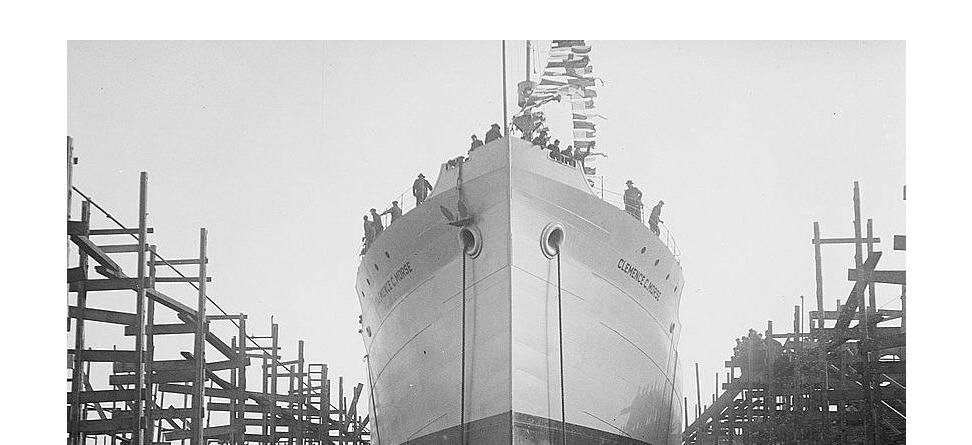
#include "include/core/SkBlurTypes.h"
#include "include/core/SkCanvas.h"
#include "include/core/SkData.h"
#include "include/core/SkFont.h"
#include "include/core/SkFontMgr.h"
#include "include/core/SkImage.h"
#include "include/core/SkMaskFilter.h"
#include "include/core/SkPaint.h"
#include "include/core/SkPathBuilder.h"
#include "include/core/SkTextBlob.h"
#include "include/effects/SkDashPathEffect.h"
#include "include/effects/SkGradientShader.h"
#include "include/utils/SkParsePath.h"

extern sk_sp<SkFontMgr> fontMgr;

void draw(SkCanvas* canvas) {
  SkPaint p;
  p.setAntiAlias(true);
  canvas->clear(SK_ColorWHITE);
  canvas->drawImageRect(SkImages::DeferredFromEncodedData(SkData::MakeFromFileName("images/1.png")), SkRect::MakeLTRB(67, 40, 906, 445), SkSamplingOptions());
}
